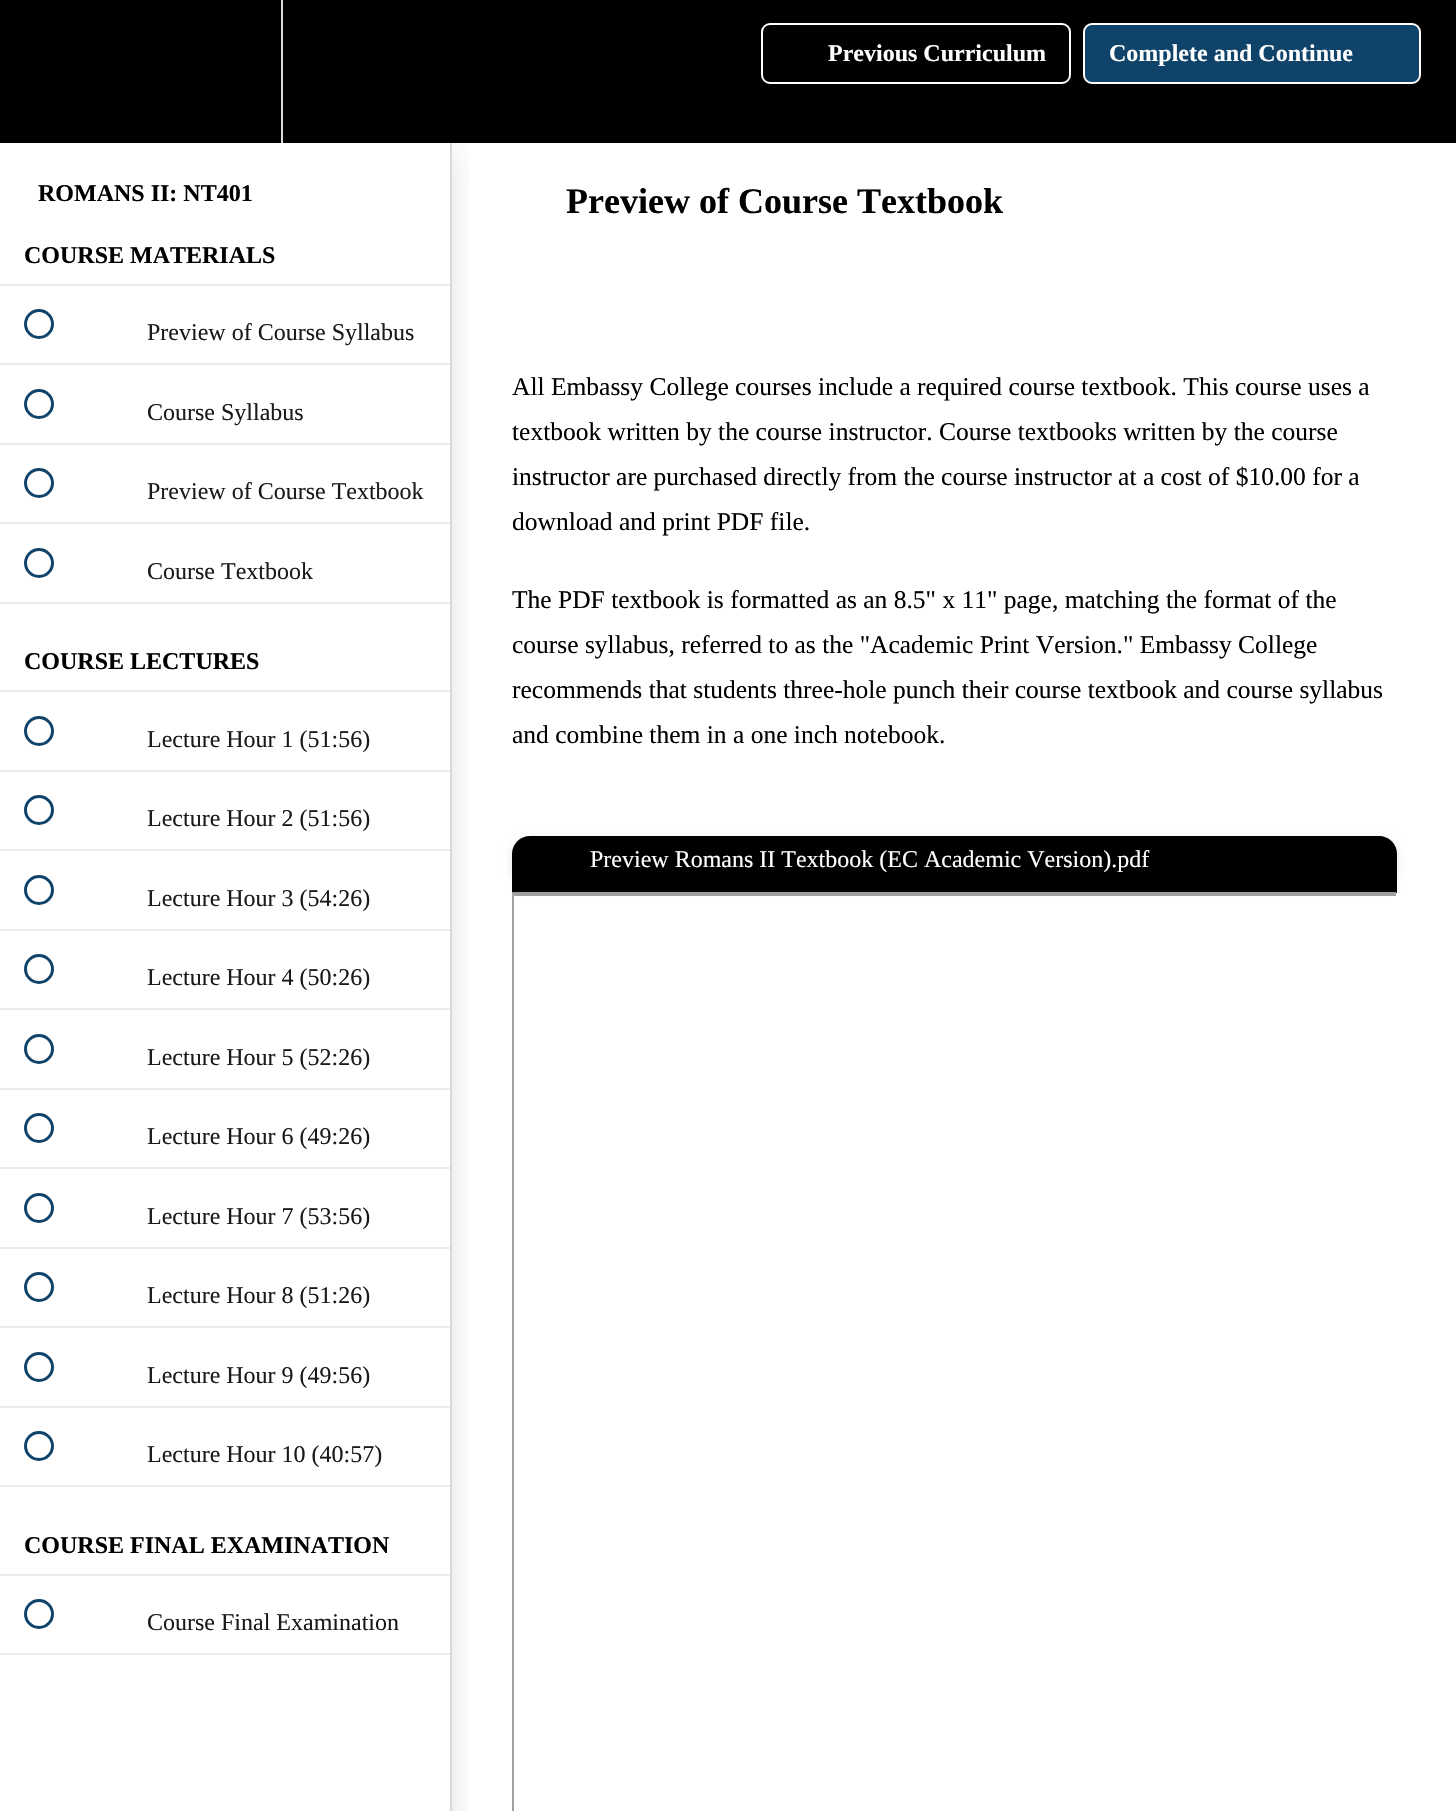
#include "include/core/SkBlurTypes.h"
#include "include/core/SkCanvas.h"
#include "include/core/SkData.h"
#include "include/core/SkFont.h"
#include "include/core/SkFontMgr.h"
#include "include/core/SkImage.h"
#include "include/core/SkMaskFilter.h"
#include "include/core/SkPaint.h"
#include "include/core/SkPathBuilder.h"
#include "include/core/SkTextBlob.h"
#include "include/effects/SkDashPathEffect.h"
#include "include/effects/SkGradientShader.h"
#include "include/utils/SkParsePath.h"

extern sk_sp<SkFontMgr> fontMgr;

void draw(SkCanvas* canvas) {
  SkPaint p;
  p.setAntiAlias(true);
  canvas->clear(SK_ColorWHITE);
  canvas->save();
  canvas->clipRect(SkRect::MakeLTRB(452, 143, 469, 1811));
  p.setColor(SkColorSetARGB(38, 32, 39, 45));
  p.setMaskFilter(SkMaskFilter::MakeBlur(kNormal_SkBlurStyle, 15));
  canvas->drawRect(SkRect::MakeLTRB(0, 152, 452, 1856), p);
  p.setMaskFilter(nullptr);
  canvas->restore();
  p.setColor(SK_ColorBLACK);
  canvas->drawRect(SkRect::MakeLTRB(0, 0, 1456, 143), p);
  p.setColor(SkColorSetRGB(215, 218, 219));
  canvas->drawRect(SkRect::MakeLTRB(281, 0, 283, 143), p);
  p.setStyle(SkPaint::kStroke_Style);
  p.setStrokeWidth(2);
  p.setColor(SK_ColorWHITE);
  canvas->drawRoundRect(SkRect::MakeLTRB(762, 24, 1070, 83), 8, 8, p);
  p.setStyle(SkPaint::kFill_Style);
  p.setColor(SkColorSetRGB(16, 67, 106));
  canvas->drawRoundRect(SkRect::MakeLTRB(1084, 24, 1420, 83), 8, 8, p);
  p.setStyle(SkPaint::kStroke_Style);
  p.setColor(SK_ColorWHITE);
  canvas->drawRoundRect(SkRect::MakeLTRB(1084, 24, 1420, 83), 8, 8, p);
  p.setStyle(SkPaint::kFill_Style);
  p.setColor(SkColorSetRGB(215, 218, 219));
  canvas->drawRect(SkRect::MakeLTRB(450, 143, 452, 1811), p);
  p.setColor(SkColorSetRGB(231, 236, 240));
  canvas->drawRect(SkRect::MakeLTRB(0, 284, 450, 286), p);
  canvas->drawRect(SkRect::MakeLTRB(0, 363, 450, 365), p);
  p.setStyle(SkPaint::kStroke_Style);
  p.setStrokeWidth(3);
  p.setColor(SkColorSetRGB(16, 67, 106));
  canvas->drawCircle(39, 324, 13.5f, p);
  p.setStyle(SkPaint::kFill_Style);
  p.setColor(SkColorSetRGB(231, 236, 240));
  canvas->drawRect(SkRect::MakeLTRB(0, 443, 450, 445), p);
  p.setStyle(SkPaint::kStroke_Style);
  p.setColor(SkColorSetRGB(16, 67, 106));
  canvas->drawCircle(39, 404, 13.5f, p);
  p.setStyle(SkPaint::kFill_Style);
  p.setColor(SkColorSetRGB(231, 236, 240));
  canvas->drawRect(SkRect::MakeLTRB(0, 522, 450, 524), p);
  p.setStyle(SkPaint::kStroke_Style);
  p.setColor(SkColorSetRGB(16, 67, 106));
  canvas->drawCircle(39, 483, 13.5f, p);
  p.setStyle(SkPaint::kFill_Style);
  p.setColor(SkColorSetRGB(231, 236, 240));
  canvas->drawRect(SkRect::MakeLTRB(0, 602, 450, 604), p);
  p.setStyle(SkPaint::kStroke_Style);
  p.setColor(SkColorSetRGB(16, 67, 106));
  canvas->drawCircle(39, 563, 13.5f, p);
  p.setStyle(SkPaint::kFill_Style);
  p.setColor(SkColorSetRGB(231, 236, 240));
  canvas->drawRect(SkRect::MakeLTRB(0, 690, 450, 692), p);
  canvas->drawRect(SkRect::MakeLTRB(0, 770, 450, 772), p);
  p.setStyle(SkPaint::kStroke_Style);
  p.setColor(SkColorSetRGB(16, 67, 106));
  canvas->drawCircle(39, 731, 13.5f, p);
  p.setStyle(SkPaint::kFill_Style);
  p.setColor(SkColorSetRGB(231, 236, 240));
  canvas->drawRect(SkRect::MakeLTRB(0, 849, 450, 851), p);
  p.setStyle(SkPaint::kStroke_Style);
  p.setColor(SkColorSetRGB(16, 67, 106));
  canvas->drawCircle(39, 810, 13.5f, p);
  p.setStyle(SkPaint::kFill_Style);
  p.setColor(SkColorSetRGB(231, 236, 240));
  canvas->drawRect(SkRect::MakeLTRB(0, 929, 450, 931), p);
  p.setStyle(SkPaint::kStroke_Style);
  p.setColor(SkColorSetRGB(16, 67, 106));
  canvas->drawCircle(39, 890, 13.5f, p);
  p.setStyle(SkPaint::kFill_Style);
  p.setColor(SkColorSetRGB(231, 236, 240));
  canvas->drawRect(SkRect::MakeLTRB(0, 1008, 450, 1010), p);
  p.setStyle(SkPaint::kStroke_Style);
  p.setColor(SkColorSetRGB(16, 67, 106));
  canvas->drawCircle(39, 969, 13.5f, p);
  p.setStyle(SkPaint::kFill_Style);
  p.setColor(SkColorSetRGB(231, 236, 240));
  canvas->drawRect(SkRect::MakeLTRB(0, 1088, 450, 1090), p);
  p.setStyle(SkPaint::kStroke_Style);
  p.setColor(SkColorSetRGB(16, 67, 106));
  canvas->drawCircle(39, 1049, 13.5f, p);
  p.setStyle(SkPaint::kFill_Style);
  p.setColor(SkColorSetRGB(231, 236, 240));
  canvas->drawRect(SkRect::MakeLTRB(0, 1167, 450, 1169), p);
  p.setStyle(SkPaint::kStroke_Style);
  p.setColor(SkColorSetRGB(16, 67, 106));
  canvas->drawCircle(39, 1128, 13.5f, p);
  p.setStyle(SkPaint::kFill_Style);
  p.setColor(SkColorSetRGB(231, 236, 240));
  canvas->drawRect(SkRect::MakeLTRB(0, 1247, 450, 1249), p);
  p.setStyle(SkPaint::kStroke_Style);
  p.setColor(SkColorSetRGB(16, 67, 106));
  canvas->drawCircle(39, 1208, 13.5f, p);
  p.setStyle(SkPaint::kFill_Style);
  p.setColor(SkColorSetRGB(231, 236, 240));
  canvas->drawRect(SkRect::MakeLTRB(0, 1326, 450, 1328), p);
  p.setStyle(SkPaint::kStroke_Style);
  p.setColor(SkColorSetRGB(16, 67, 106));
  canvas->drawCircle(39, 1287, 13.5f, p);
  p.setStyle(SkPaint::kFill_Style);
  p.setColor(SkColorSetRGB(231, 236, 240));
  canvas->drawRect(SkRect::MakeLTRB(0, 1406, 450, 1408), p);
  p.setStyle(SkPaint::kStroke_Style);
  p.setColor(SkColorSetRGB(16, 67, 106));
  canvas->drawCircle(39, 1367, 13.5f, p);
  p.setStyle(SkPaint::kFill_Style);
  p.setColor(SkColorSetRGB(231, 236, 240));
  canvas->drawRect(SkRect::MakeLTRB(0, 1485, 450, 1487), p);
  p.setStyle(SkPaint::kStroke_Style);
  p.setColor(SkColorSetRGB(16, 67, 106));
  canvas->drawCircle(39, 1446, 13.5f, p);
  p.setStyle(SkPaint::kFill_Style);
  p.setColor(SkColorSetRGB(231, 236, 240));
  canvas->drawRect(SkRect::MakeLTRB(0, 1574, 450, 1576), p);
  canvas->drawRect(SkRect::MakeLTRB(0, 1653, 450, 1655), p);
  p.setStyle(SkPaint::kStroke_Style);
  p.setColor(SkColorSetRGB(16, 67, 106));
  canvas->drawCircle(39, 1614, 13.5f, p);
  p.setStyle(SkPaint::kFill_Style);
  p.setColor(SkColorSetARGB(26, 0, 0, 0));
  p.setMaskFilter(SkMaskFilter::MakeBlur(kNormal_SkBlurStyle, 4.5f));
  canvas->drawRoundRect(SkRect::MakeLTRB(512, 839, 1397, 887), 18, 18, p);
  p.setMaskFilter(nullptr);
  p.setColor(SK_ColorBLACK);
  canvas->drawPath(SkPathBuilder().moveTo(530, 836).lineTo(1379, 836).cubicTo(1389, 836, 1397, 844, 1397, 854).lineTo(1397, 884).lineTo(512, 884).lineTo(512, 854).cubicTo(512, 844, 520, 836, 530, 836).close().detach(), p);
  canvas->drawRect(SkRect::MakeLTRB(512, 884, 1397, 893), p);
  p.setColor(SkColorSetRGB(159, 159, 159));
  canvas->drawPath(SkPathBuilder().moveTo(1396, 896).lineTo(514, 896).lineTo(512, 892).lineTo(1396, 892).close().detach(), p);
  canvas->drawPath(SkPathBuilder().moveTo(512, 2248).lineTo(512, 892).lineTo(514, 896).lineTo(514, 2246).close().detach(), p);
  SkFont font1(fontMgr->matchFamilyStyle("Liberation Serif", SkFontStyle::Bold()), 24);
  font1.setSubpixel(true);
  p.setColor(SK_ColorWHITE);
  canvas->drawString("Previous Curriculum", 828, 61, font1, p);
  canvas->drawString("Complete and Continue", 1109, 61, font1, p);
  p.setColor(SK_ColorBLACK);
  canvas->drawString("ROMANS II: NT401", 38, 201, font1, p);
  canvas->drawString("COURSE MATERIALS", 24, 263, font1, p);
  SkFont font2(fontMgr->matchFamilyStyle("Liberation Serif", SkFontStyle::Normal()), 24);
  font2.setSubpixel(true);
  p.setColor(SkColorSetRGB(26, 26, 26));
  canvas->drawString("Preview of Course Syllabus", 147, 340, font2, p);
  canvas->drawString("Course Syllabus", 147, 420, font2, p);
  canvas->drawString("Preview of Course Textbook", 147, 499, font2, p);
  canvas->drawString("Course Textbook", 147, 579, font2, p);
  p.setColor(SK_ColorBLACK);
  canvas->drawString("COURSE LECTURES", 24, 669, font1, p);
  p.setColor(SkColorSetRGB(26, 26, 26));
  canvas->drawString("Lecture Hour 1 (51:56)", 147, 747, font2, p);
  canvas->drawString("Lecture Hour 2 (51:56)", 147, 826, font2, p);
  canvas->drawString("Lecture Hour 3 (54:26)", 147, 906, font2, p);
  canvas->drawString("Lecture Hour 4 (50:26)", 147, 985, font2, p);
  canvas->drawString("Lecture Hour 5 (52:26)", 147, 1065, font2, p);
  canvas->drawString("Lecture Hour 6 (49:26)", 147, 1144, font2, p);
  canvas->drawString("Lecture Hour 7 (53:56)", 147, 1224, font2, p);
  canvas->drawString("Lecture Hour 8 (51:26)", 147, 1303, font2, p);
  canvas->drawString("Lecture Hour 9 (49:56)", 147, 1383, font2, p);
  canvas->drawString("Lecture Hour 10 (40:57)", 147, 1462, font2, p);
  p.setColor(SK_ColorBLACK);
  canvas->drawString("COURSE FINAL EXAMINATION", 24, 1553, font1, p);
  p.setColor(SkColorSetRGB(26, 26, 26));
  canvas->drawString("Course Final Examination", 147, 1630, font2, p);
  SkFont font3(fontMgr->matchFamilyStyle("Liberation Serif", SkFontStyle::Bold()), 36);
  font3.setSubpixel(true);
  p.setColor(SK_ColorBLACK);
  canvas->drawString("Preview of Course Textbook", 566, 213, font3, p);
  SkFont font4(fontMgr->matchFamilyStyle("Liberation Serif", SkFontStyle::Normal()), 25.5f);
  font4.setSubpixel(true);
  canvas->drawString("All Embassy College courses include a required course textbook. This course uses a", 512, 395, font4, p);
  canvas->drawString("textbook written by the course instructor. Course textbooks written by the course", 512, 440, font4, p);
  canvas->drawString("instructor are purchased directly from the course instructor at a cost of $10.00 for a", 512, 485, font4, p);
  canvas->drawString("download and print PDF file.", 512, 530, font4, p);
  canvas->drawString("The PDF textbook is formatted as an 8.5\" x 11\" page, matching the format of the", 512, 608, font4, p);
  canvas->drawString("course syllabus, referred to as the \"Academic Print Version.\" Embassy College", 512, 653, font4, p);
  canvas->drawString("recommends that students three-hole punch their course textbook and course syllabus", 512, 698, font4, p);
  canvas->drawString("and combine them in a one inch notebook.", 512, 743, font4, p);
  p.setColor(SK_ColorWHITE);
  canvas->drawString("Preview Romans II Textbook (EC Academic Version).pdf", 590, 867, font2, p);
}
